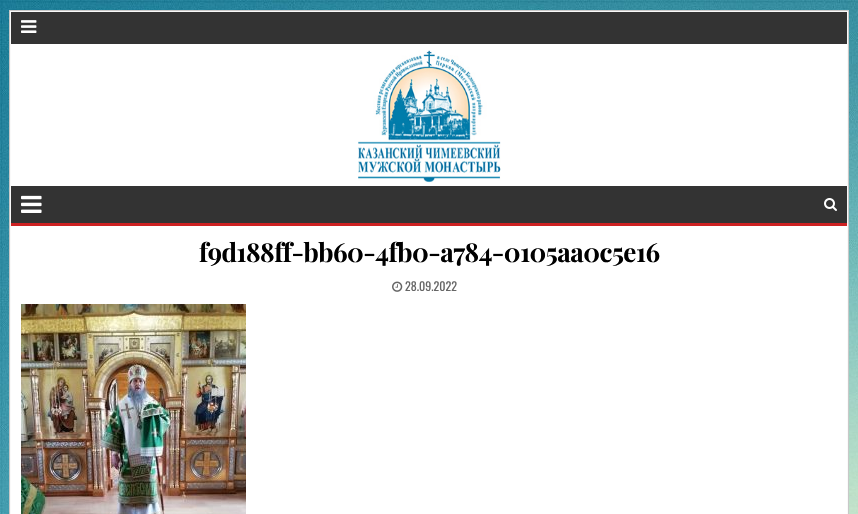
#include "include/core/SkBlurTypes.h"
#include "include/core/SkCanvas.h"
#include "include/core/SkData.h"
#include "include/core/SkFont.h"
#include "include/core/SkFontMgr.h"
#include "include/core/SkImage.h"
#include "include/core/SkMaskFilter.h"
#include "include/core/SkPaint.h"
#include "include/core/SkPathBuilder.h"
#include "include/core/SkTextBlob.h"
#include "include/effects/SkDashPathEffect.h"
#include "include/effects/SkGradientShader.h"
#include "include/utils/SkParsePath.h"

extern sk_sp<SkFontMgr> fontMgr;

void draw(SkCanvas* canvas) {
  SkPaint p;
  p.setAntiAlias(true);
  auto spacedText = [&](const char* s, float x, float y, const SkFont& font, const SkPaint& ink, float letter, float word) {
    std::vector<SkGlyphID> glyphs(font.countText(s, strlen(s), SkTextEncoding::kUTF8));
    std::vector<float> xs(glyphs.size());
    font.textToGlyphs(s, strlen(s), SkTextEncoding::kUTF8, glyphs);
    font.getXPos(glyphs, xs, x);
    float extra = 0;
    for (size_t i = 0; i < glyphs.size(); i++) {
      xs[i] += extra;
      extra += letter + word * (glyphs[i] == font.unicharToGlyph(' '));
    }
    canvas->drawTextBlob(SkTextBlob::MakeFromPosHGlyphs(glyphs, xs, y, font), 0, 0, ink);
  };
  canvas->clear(SK_ColorWHITE);
  canvas->drawImageRect(SkImages::DeferredFromEncodedData(SkData::MakeFromFileName("images/1.png")), SkRect::MakeLTRB(0, 0, 858, 514), SkSamplingOptions());
  p.setStyle(SkPaint::kStroke_Style);
  p.setStrokeWidth(1);
  p.setColor(SkColorSetRGB(200, 200, 200));
  canvas->drawRect(SkRect::MakeLTRB(9.5f, 10.5f, 848.5f, 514.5f), p);
  p.setColor(SkColorSetRGB(249, 249, 249));
  canvas->drawRect(SkRect::MakeLTRB(10.5f, 11.5f, 847.5f, 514.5f), p);
  p.setStyle(SkPaint::kFill_Style);
  p.setColor(SkColorSetRGB(51, 51, 51));
  canvas->drawRect(SkRect::MakeLTRB(11, 12, 847, 44), p);
  canvas->drawImageRect(SkImages::DeferredFromEncodedData(SkData::MakeFromFileName("images/2.png")), SkRect::MakeLTRB(21, 20, 37, 33), SkSamplingOptions());
  p.setColor(SK_ColorWHITE);
  canvas->drawRect(SkRect::MakeLTRB(11, 44, 847, 186), p);
  canvas->drawImageRect(SkImages::DeferredFromEncodedData(SkData::MakeFromFileName("images/3.png")), SkRect::MakeLTRB(358, 50, 501, 183), SkSamplingOptions());
  p.setColor(SkColorSetRGB(51, 51, 51));
  canvas->drawRect(SkRect::MakeLTRB(11, 186, 847, 223), p);
  p.setColor(SkColorSetRGB(205, 33, 34));
  canvas->drawRect(SkRect::MakeLTRB(11, 223, 847, 226), p);
  canvas->drawImageRect(SkImages::DeferredFromEncodedData(SkData::MakeFromFileName("images/4.png")), SkRect::MakeLTRB(21, 195, 42, 213), SkSamplingOptions());
  canvas->drawImageRect(SkImages::DeferredFromEncodedData(SkData::MakeFromFileName("images/5.png")), SkRect::MakeLTRB(824, 198, 837, 211), SkSamplingOptions());
  p.setColor(SK_ColorWHITE);
  canvas->drawRect(SkRect::MakeLTRB(11, 226, 847, 514), p);
  canvas->drawImageRect(SkImages::DeferredFromEncodedData(SkData::MakeFromFileName("images/6.png")), SkRect::MakeLTRB(392, 281, 403, 292), SkSamplingOptions());
  canvas->drawImageRect(SkImages::DeferredFromEncodedData(SkData::MakeFromFileName("images/7.png")), SkRect::MakeLTRB(21, 304, 246, 514), SkSamplingOptions());
  SkFont font1(fontMgr->matchFamilyStyle("Playfair Display", SkFontStyle::Bold()), 26);
  font1.setSubpixel(true);
  p.setColor(SK_ColorBLACK);
  spacedText("f9d188ff-bb60-4fb0-a784-0105aa0c5e16", 199, 262, font1, p, -0.5f, 0);
  SkFont font2(fontMgr->matchFamilyStyle("Oswald", SkFontStyle::Normal()), 12);
  font2.setSubpixel(true);
  p.setColor(SkColorSetRGB(102, 102, 102));
  canvas->drawString("28.09.2022", 405, 291, font2, p);
}
